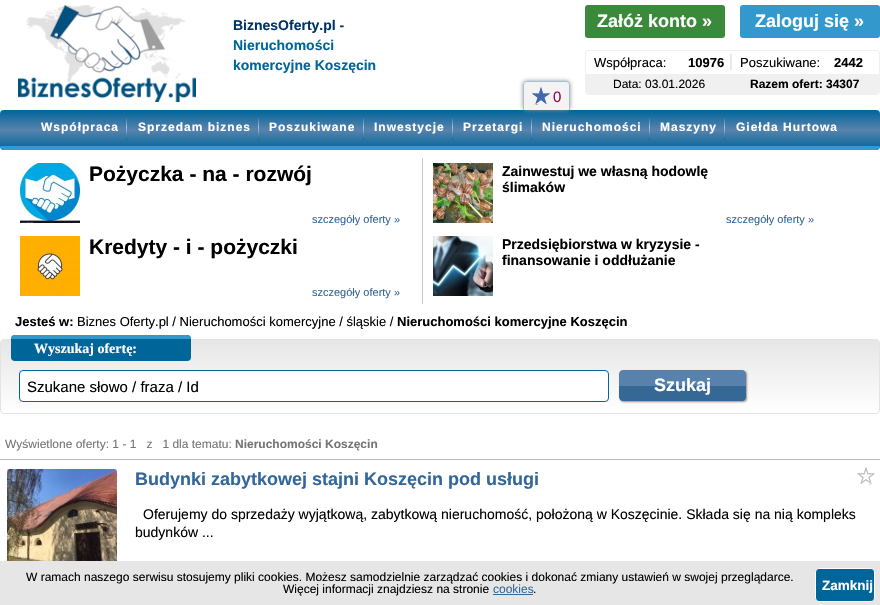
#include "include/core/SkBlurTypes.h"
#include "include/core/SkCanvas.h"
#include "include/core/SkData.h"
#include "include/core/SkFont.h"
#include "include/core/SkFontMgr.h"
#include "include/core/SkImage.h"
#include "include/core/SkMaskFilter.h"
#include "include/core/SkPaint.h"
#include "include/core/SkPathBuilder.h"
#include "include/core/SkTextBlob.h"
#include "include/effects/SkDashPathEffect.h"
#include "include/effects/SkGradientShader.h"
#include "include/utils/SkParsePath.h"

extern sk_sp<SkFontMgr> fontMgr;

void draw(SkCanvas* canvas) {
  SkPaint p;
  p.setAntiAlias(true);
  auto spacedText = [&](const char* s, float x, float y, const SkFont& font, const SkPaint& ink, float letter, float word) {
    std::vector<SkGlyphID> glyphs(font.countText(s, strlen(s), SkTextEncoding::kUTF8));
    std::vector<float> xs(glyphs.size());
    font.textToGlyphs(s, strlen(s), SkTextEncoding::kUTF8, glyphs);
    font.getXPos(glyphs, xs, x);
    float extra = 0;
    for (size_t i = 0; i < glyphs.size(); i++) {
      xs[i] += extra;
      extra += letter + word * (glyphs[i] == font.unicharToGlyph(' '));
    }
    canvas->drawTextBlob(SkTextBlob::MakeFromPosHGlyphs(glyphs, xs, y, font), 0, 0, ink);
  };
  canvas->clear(SK_ColorWHITE);
  canvas->drawImageRect(SkImages::DeferredFromEncodedData(SkData::MakeFromFileName("images/1.png")), SkRect::MakeLTRB(18, 5, 196, 102), SkSamplingOptions());
  p.setColor(SkColorSetRGB(59, 137, 59));
  canvas->drawRoundRect(SkRect::MakeLTRB(585, 5, 725, 38), 3, 3, p);
  p.setColor(SkColorSetRGB(51, 152, 204));
  canvas->drawRoundRect(SkRect::MakeLTRB(740, 5, 880, 38), 3, 3, p);
  p.setStyle(SkPaint::kStroke_Style);
  p.setStrokeWidth(1);
  p.setColor(SkColorSetRGB(240, 240, 240));
  canvas->drawRoundRect(SkRect::MakeLTRB(585.5f, 50.5f, 879.5f, 94.5f), 2.5f, 2.5f, p);
  p.setStyle(SkPaint::kFill_Style);
  p.setColor(SkColorSetRGB(229, 233, 236));
  canvas->drawRect(SkRect::MakeLTRB(730, 54, 732, 70), p);
  p.setColor(SkColorSetRGB(240, 240, 240));
  canvas->drawPath(SkPathBuilder().moveTo(586, 74).lineTo(879, 74).lineTo(879, 91).cubicTo(879, 92.5f, 877.5f, 94, 876, 94).lineTo(589, 94).cubicTo(587.5f, 94, 586, 92.5f, 586, 91).close().detach(), p);
  {
    const SkColor colors[] = {SkColorSetRGB(0, 101, 153), SkColorSetRGB(88, 131, 173), SkColorSetRGB(0, 101, 153)};
    const float stops[] = {0, 0.5f, 1};
    const SkPoint ends[] = {{440, 110}, {440, 150}};
    p.setShader(SkGradientShader::MakeLinear(ends, colors, stops, 3, SkTileMode::kClamp));
    p.setAlpha(255);
  }
  canvas->drawRoundRect(SkRect::MakeLTRB(0, 110, 880, 150), 4, 4, p);
  {
    const SkColor colors[] = {SkColorSetRGB(0, 101, 153), SkColorSetRGB(178, 195, 215), SkColorSetRGB(0, 101, 153)};
    const float stops[] = {0, 0.5f, 1};
    const SkPoint ends[] = {{532, 115}, {532, 140}};
    p.setShader(SkGradientShader::MakeLinear(ends, colors, stops, 3, SkTileMode::kClamp));
    p.setAlpha(255);
  }
  canvas->drawRect(SkRect::MakeLTRB(531, 115, 532, 140), p);
  p.setShader(nullptr);
  p.setColor(SkColorSetRGB(147, 147, 147));
  p.setMaskFilter(SkMaskFilter::MakeBlur(kNormal_SkBlurStyle, 2));
  canvas->drawRoundRect(SkRect::MakeLTRB(523, 81, 570, 110), 4, 4, p);
  p.setMaskFilter(nullptr);
  p.setColor(SkColorSetRGB(243, 243, 243));
  canvas->drawPath(SkPathBuilder().moveTo(527, 81).lineTo(566, 81).cubicTo(568, 81, 570, 83, 570, 85).lineTo(570, 110).lineTo(523, 110).lineTo(523, 85).cubicTo(523, 83, 525, 81, 527, 81).close().detach(), p);
  p.setColor(SkColorSetRGB(166, 194, 208));
  canvas->drawPath(SkPathBuilder(SkPathFillType::kEvenOdd).moveTo(527, 81).lineTo(566, 81).cubicTo(568, 81, 570, 83, 570, 85).lineTo(570, 110).lineTo(523, 110).lineTo(523, 85).cubicTo(523, 83, 525, 81, 527, 81).close().moveTo(527, 82).lineTo(566, 82).cubicTo(568, 82, 569, 83, 569, 85).lineTo(569, 110).lineTo(524, 110).lineTo(524, 85).cubicTo(524, 83, 525, 82, 527, 82).close().detach(), p);
  canvas->drawImageRect(SkImages::DeferredFromEncodedData(SkData::MakeFromFileName("images/2.png")), SkRect::MakeLTRB(532, 87, 550, 105), SkSamplingOptions());
  {
    const SkColor colors[] = {SkColorSetRGB(0, 101, 153), SkColorSetRGB(178, 195, 215), SkColorSetRGB(0, 101, 153)};
    const float stops[] = {0, 0.5f, 1};
    const SkPoint ends[] = {{127, 115}, {127, 140}};
    p.setShader(SkGradientShader::MakeLinear(ends, colors, stops, 3, SkTileMode::kClamp));
    p.setAlpha(255);
  }
  canvas->drawRect(SkRect::MakeLTRB(126, 115, 127, 140), p);
  {
    const SkColor colors[] = {SkColorSetRGB(0, 101, 153), SkColorSetRGB(178, 195, 215), SkColorSetRGB(0, 101, 153)};
    const float stops[] = {0, 0.5f, 1};
    const SkPoint ends[] = {{259, 115}, {259, 140}};
    p.setShader(SkGradientShader::MakeLinear(ends, colors, stops, 3, SkTileMode::kClamp));
    p.setAlpha(255);
  }
  canvas->drawRect(SkRect::MakeLTRB(258, 115, 259, 140), p);
  {
    const SkColor colors[] = {SkColorSetRGB(0, 101, 153), SkColorSetRGB(178, 195, 215), SkColorSetRGB(0, 101, 153)};
    const float stops[] = {0, 0.5f, 1};
    const SkPoint ends[] = {{364, 115}, {364, 140}};
    p.setShader(SkGradientShader::MakeLinear(ends, colors, stops, 3, SkTileMode::kClamp));
    p.setAlpha(255);
  }
  canvas->drawRect(SkRect::MakeLTRB(363, 115, 364, 140), p);
  {
    const SkColor colors[] = {SkColorSetRGB(0, 101, 153), SkColorSetRGB(178, 195, 215), SkColorSetRGB(0, 101, 153)};
    const float stops[] = {0, 0.5f, 1};
    const SkPoint ends[] = {{453, 115}, {453, 140}};
    p.setShader(SkGradientShader::MakeLinear(ends, colors, stops, 3, SkTileMode::kClamp));
    p.setAlpha(255);
  }
  canvas->drawRect(SkRect::MakeLTRB(452, 115, 453, 140), p);
  {
    const SkColor colors[] = {SkColorSetRGB(0, 101, 153), SkColorSetRGB(178, 195, 215), SkColorSetRGB(0, 101, 153)};
    const float stops[] = {0, 0.5f, 1};
    const SkPoint ends[] = {{650, 115}, {650, 140}};
    p.setShader(SkGradientShader::MakeLinear(ends, colors, stops, 3, SkTileMode::kClamp));
    p.setAlpha(255);
  }
  canvas->drawRect(SkRect::MakeLTRB(649, 115, 650, 140), p);
  {
    const SkColor colors[] = {SkColorSetRGB(0, 101, 153), SkColorSetRGB(178, 195, 215), SkColorSetRGB(0, 101, 153)};
    const float stops[] = {0, 0.5f, 1};
    const SkPoint ends[] = {{725, 115}, {725, 140}};
    p.setShader(SkGradientShader::MakeLinear(ends, colors, stops, 3, SkTileMode::kClamp));
    p.setAlpha(255);
  }
  canvas->drawRect(SkRect::MakeLTRB(724, 115, 725, 140), p);
  p.setShader(nullptr);
  p.setColor(SkColorSetRGB(51, 152, 204));
  canvas->drawPath(SkPathBuilder().moveTo(0, 146).lineTo(880, 146).cubicTo(880, 148, 878, 150, 876, 150).lineTo(4, 150).cubicTo(2, 150, 0, 148, 0, 146).close().detach(), p);
  p.setColor(SkColorSetRGB(201, 201, 201));
  canvas->drawRect(SkRect::MakeLTRB(422, 158, 423, 304), p);
  canvas->drawImageRect(SkImages::DeferredFromEncodedData(SkData::MakeFromFileName("images/3.png")), SkRect::MakeLTRB(20, 163, 80, 223), SkSamplingOptions());
  canvas->drawImageRect(SkImages::DeferredFromEncodedData(SkData::MakeFromFileName("images/4.png")), SkRect::MakeLTRB(433, 163, 493, 223), SkSamplingOptions());
  canvas->drawImageRect(SkImages::DeferredFromEncodedData(SkData::MakeFromFileName("images/5.png")), SkRect::MakeLTRB(20, 236, 80, 296), SkSamplingOptions());
  canvas->drawImageRect(SkImages::DeferredFromEncodedData(SkData::MakeFromFileName("images/6.png")), SkRect::MakeLTRB(433, 236, 493, 296), SkSamplingOptions());
  p.setStyle(SkPaint::kStroke_Style);
  p.setColor(SkColorSetRGB(228, 228, 228));
  canvas->drawRoundRect(SkRect::MakeLTRB(0.5f, 339.5f, 879.5f, 413.5f), 3.5f, 3.5f, p);
  p.setStyle(SkPaint::kFill_Style);
  {
    const SkColor colors[] = {SkColorSetRGB(230, 230, 230), SK_ColorWHITE};
    const float stops[] = {0, 1};
    const SkPoint ends[] = {{440, 340}, {440, 413}};
    p.setShader(SkGradientShader::MakeLinear(ends, colors, stops, 2, SkTileMode::kClamp));
    p.setAlpha(255);
  }
  canvas->drawPath(SkPathBuilder().moveTo(1, 340).lineTo(879, 340).lineTo(879, 409).cubicTo(879, 411, 877, 413, 875, 413).lineTo(5, 413).cubicTo(3, 413, 1, 411, 1, 409).close().detach(), p);
  p.setShader(nullptr);
  p.setColor(SkColorSetRGB(0, 101, 153));
  canvas->drawRoundRect(SkRect::MakeLTRB(11, 335, 191, 361), 4, 4, p);
  p.setColor(SkColorSetRGB(51, 152, 204));
  canvas->drawPath(SkPathBuilder().moveTo(15, 335).lineTo(187, 335).cubicTo(189, 335, 191, 337, 191, 339).lineTo(11, 339).cubicTo(11, 337, 13, 335, 15, 335).close().detach(), p);
  p.setColor(SK_ColorWHITE);
  canvas->drawRoundRect(SkRect::MakeLTRB(19.5f, 370.5f, 608.5f, 401.5f), 3.5f, 3.5f, p);
  p.setStyle(SkPaint::kStroke_Style);
  p.setColor(SkColorSetRGB(0, 101, 153));
  canvas->drawRoundRect(SkRect::MakeLTRB(19.5f, 370.5f, 608.5f, 401.5f), 3.5f, 3.5f, p);
  p.setStyle(SkPaint::kFill_Style);
  p.setColor(SkColorSetRGB(147, 147, 147));
  p.setMaskFilter(SkMaskFilter::MakeBlur(kNormal_SkBlurStyle, 1));
  canvas->drawRoundRect(SkRect::MakeLTRB(620, 371, 747, 402), 4, 4, p);
  p.setMaskFilter(nullptr);
  p.setColor(SkColorSetRGB(88, 130, 172));
  canvas->drawPath(SkPathBuilder().moveTo(623, 370).lineTo(742, 370).cubicTo(744, 370, 746, 372, 746, 374).lineTo(746, 386).lineTo(619, 386).lineTo(619, 374).cubicTo(619, 372, 621, 370, 623, 370).close().detach(), p);
  p.setColor(SkColorSetRGB(53, 104, 149));
  canvas->drawPath(SkPathBuilder().moveTo(619, 386).lineTo(746, 386).lineTo(746, 397).cubicTo(746, 399, 744, 401, 742, 401).lineTo(623, 401).cubicTo(621, 401, 619, 399, 619, 397).close().detach(), p);
  p.setColor(SkColorSetRGB(185, 185, 185));
  canvas->drawRect(SkRect::MakeLTRB(0, 459, 880, 460), p);
  canvas->drawImageRect(SkImages::DeferredFromEncodedData(SkData::MakeFromFileName("images/7.png")), SkRect::MakeLTRB(7, 469, 117, 561), SkSamplingOptions());
  canvas->drawImageRect(SkImages::DeferredFromEncodedData(SkData::MakeFromFileName("images/8.png")), SkRect::MakeLTRB(857, 467, 875, 485), SkSamplingOptions());
  p.setColor(SkColorSetRGB(230, 230, 230));
  canvas->drawRect(SkRect::MakeLTRB(0, 561, 880, 605), p);
  p.setColor(SkColorSetRGB(51, 102, 153));
  canvas->drawRect(SkRect::MakeLTRB(493, 594, 533, 595), p);
  p.setColor(SkColorSetRGB(0, 101, 153));
  canvas->drawRoundRect(SkRect::MakeLTRB(815.5f, 568.5f, 874.5f, 601.5f), 3.5f, 3.5f, p);
  p.setStyle(SkPaint::kStroke_Style);
  p.setColor(SK_ColorWHITE);
  canvas->drawRoundRect(SkRect::MakeLTRB(815.5f, 568.5f, 874.5f, 601.5f), 3.5f, 3.5f, p);
  SkFont font1(fontMgr->matchFamilyStyle("Liberation Sans", SkFontStyle::Bold()), 14);
  font1.setSubpixel(true);
  p.setStyle(SkPaint::kFill_Style);
  p.setColor(SkColorSetRGB(0, 51, 102));
  canvas->drawString("BiznesOferty.pl -", 233, 30, font1, p);
  p.setColor(SkColorSetRGB(0, 101, 153));
  canvas->drawString("Nieruchomości", 233, 50, font1, p);
  canvas->drawString("komercyjne Koszęcin", 233, 70, font1, p);
  SkFont font2(fontMgr->matchFamilyStyle("Liberation Sans", SkFontStyle::Bold()), 18);
  font2.setSubpixel(true);
  p.setColor(SK_ColorWHITE);
  canvas->drawString("Załóż konto »", 597, 27, font2, p);
  canvas->drawString("Zaloguj się »", 755, 27, font2, p);
  SkFont font3(fontMgr->matchFamilyStyle("Liberation Sans", SkFontStyle::Normal()), 13);
  font3.setSubpixel(true);
  p.setColor(SK_ColorBLACK);
  canvas->drawString("Współpraca:", 594, 67, font3, p);
  SkFont font4(fontMgr->matchFamilyStyle("Liberation Sans", SkFontStyle::Bold()), 13);
  font4.setSubpixel(true);
  canvas->drawString("10976", 688, 67, font4, p);
  canvas->drawString("Poszukiwane:", 740, 67, font3, p);
  canvas->drawString("2442", 834, 67, font4, p);
  SkFont font5(fontMgr->matchFamilyStyle("Liberation Sans", SkFontStyle::Normal()), 12);
  font5.setSubpixel(true);
  canvas->drawString("Data: 03.01.2026", 613, 88, font5, p);
  SkFont font6(fontMgr->matchFamilyStyle("Liberation Sans", SkFontStyle::Bold()), 12);
  font6.setSubpixel(true);
  canvas->drawString("Razem ofert: 34307", 750, 88, font6, p);
  SkFont font7(fontMgr->matchFamilyStyle("Liberation Sans", SkFontStyle::Normal()), 15);
  font7.setSubpixel(true);
  p.setColor(SkColorSetRGB(136, 14, 79));
  canvas->drawString("0", 553, 102, font7, p);
  p.setColor(SK_ColorWHITE);
  spacedText("Współpraca", 41, 131, font6, p, 1, 0);
  spacedText("Sprzedam biznes", 138, 131, font6, p, 1, 0);
  spacedText("Poszukiwane", 269, 131, font6, p, 1, 0);
  spacedText("Inwestycje", 374, 131, font6, p, 1, 0);
  spacedText("Przetargi", 463, 131, font6, p, 1, 0);
  spacedText("Nieruchomości", 542, 131, font6, p, 1, 0);
  spacedText("Maszyny", 660, 131, font6, p, 1, 0);
  spacedText("Giełda Hurtowa", 736, 131, font6, p, 1, 0);
  SkFont font8(fontMgr->matchFamilyStyle("Liberation Sans", SkFontStyle::Bold()), 21);
  font8.setSubpixel(true);
  p.setColor(SK_ColorBLACK);
  canvas->drawString("Pożyczka - na - rozwój", 89, 181, font8, p);
  SkFont font9(fontMgr->matchFamilyStyle("Liberation Sans", SkFontStyle::Normal()), 11);
  font9.setSubpixel(true);
  p.setColor(SkColorSetRGB(51, 102, 153));
  canvas->drawString("szczegóły oferty »", 312, 223, font9, p);
  p.setColor(SK_ColorBLACK);
  canvas->drawString("Zainwestuj we własną hodowlę", 502, 176, font1, p);
  canvas->drawString("ślimaków", 502, 192, font1, p);
  p.setColor(SkColorSetRGB(51, 102, 153));
  canvas->drawString("szczegóły oferty »", 726, 223, font9, p);
  p.setColor(SK_ColorBLACK);
  canvas->drawString("Kredyty - i - pożyczki", 89, 254, font8, p);
  p.setColor(SkColorSetRGB(51, 102, 153));
  canvas->drawString("szczegóły oferty »", 312, 296, font9, p);
  p.setColor(SK_ColorBLACK);
  canvas->drawString("Przedsiębiorstwa w kryzysie -", 502, 249, font1, p);
  canvas->drawString("finansowanie i oddłużanie", 502, 265, font1, p);
  canvas->drawString("Jesteś w:", 15, 326, font4, p);
  canvas->drawString("Biznes Oferty.pl / Nieruchomości komercyjne / śląskie /", 77, 326, font3, p);
  canvas->drawString("Nieruchomości komercyjne Koszęcin", 397, 326, font4, p);
  SkFont font10(fontMgr->matchFamilyStyle("Liberation Serif", SkFontStyle::Bold()), 14);
  font10.setSubpixel(true);
  p.setColor(SK_ColorWHITE);
  canvas->drawString("Wyszukaj ofertę:", 34, 353, font10, p);
  p.setColor(SK_ColorBLACK);
  canvas->drawString("Szukane słowo / fraza / Id", 27, 392, font7, p);
  p.setColor(SK_ColorWHITE);
  canvas->drawString("Szukaj", 654, 391, font2, p);
  p.setColor(SkColorSetRGB(117, 117, 117));
  canvas->drawString("Wyświetlone oferty: 1 - 1   z   1 dla tematu:", 5, 448, font5, p);
  canvas->drawString("Nieruchomości Koszęcin", 235, 448, font6, p);
  p.setColor(SkColorSetRGB(51, 102, 153));
  canvas->drawString("Budynki zabytkowej stajni Koszęcin pod usługi", 135, 485, font2, p);
  SkFont font11(fontMgr->matchFamilyStyle("Liberation Sans", SkFontStyle::Normal()), 14);
  font11.setSubpixel(true);
  p.setColor(SK_ColorBLACK);
  canvas->drawString("Oferujemy do sprzedaży wyjątkową, zabytkową nieruchomość, położoną w Koszęcinie. Składa się na nią kompleks", 143, 519, font11, p);
  canvas->drawString("budynków ...", 135, 537, font11, p);
  canvas->drawString("W ramach naszego serwisu stosujemy pliki cookies. Możesz samodzielnie zarządzać cookies i dokonać zmiany ustawień w swojej przeglądarce.", 26, 581, font5, p);
  canvas->drawString("Więcej informacji znajdziesz na stronie", 283, 593, font5, p);
  p.setColor(SkColorSetRGB(51, 102, 153));
  canvas->drawString("cookies", 493, 593, font5, p);
  p.setColor(SK_ColorBLACK);
  canvas->drawString(".", 533, 593, font5, p);
  SkFont font12(fontMgr->matchFamilyStyle("Liberation Sans", SkFontStyle::Bold()), 13.5f);
  font12.setSubpixel(true);
  p.setColor(SK_ColorWHITE);
  canvas->drawString("Zamknij", 822, 590, font12, p);
}
